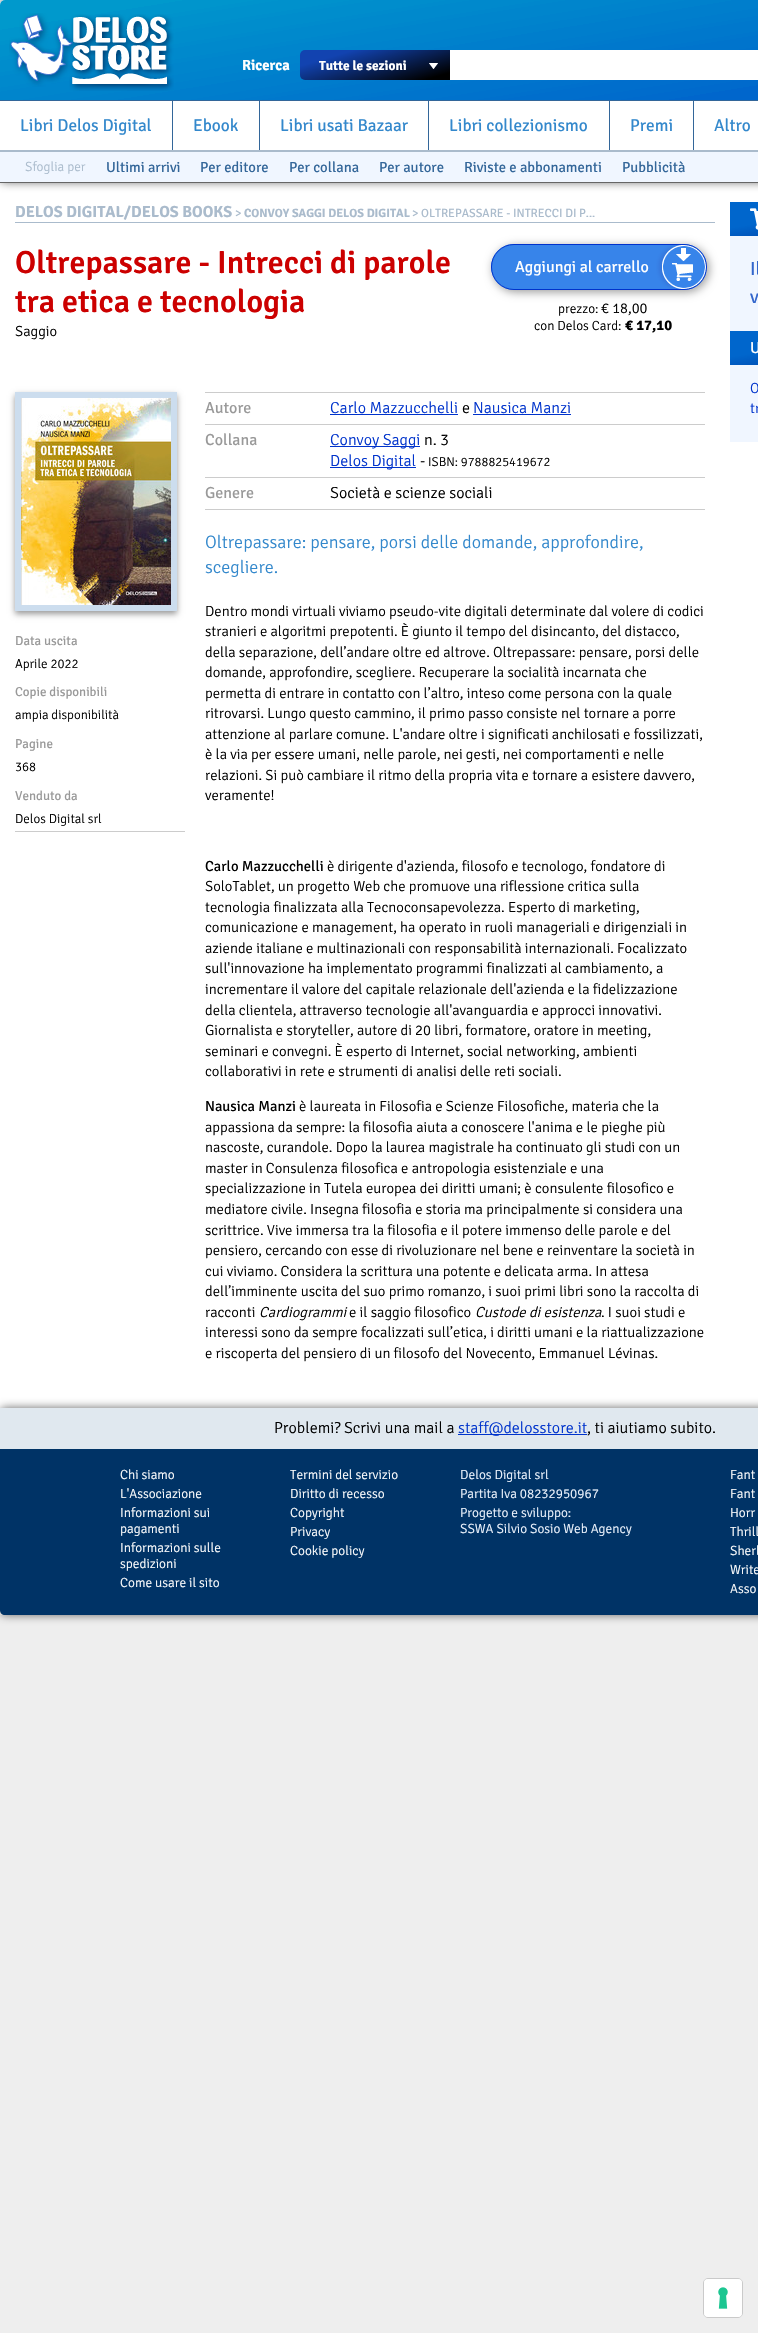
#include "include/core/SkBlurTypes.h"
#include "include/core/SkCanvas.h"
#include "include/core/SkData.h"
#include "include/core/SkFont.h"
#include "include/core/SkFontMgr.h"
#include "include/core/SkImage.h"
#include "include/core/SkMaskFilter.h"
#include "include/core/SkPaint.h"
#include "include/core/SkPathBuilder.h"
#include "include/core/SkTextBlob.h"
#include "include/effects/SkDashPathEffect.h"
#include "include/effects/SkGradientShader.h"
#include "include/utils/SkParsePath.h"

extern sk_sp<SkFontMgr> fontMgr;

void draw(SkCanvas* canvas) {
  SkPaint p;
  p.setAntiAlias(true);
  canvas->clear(SkColorSetRGB(238, 238, 238));
  p.setColor(SK_ColorWHITE);
  canvas->drawRect(SkRect::MakeLTRB(0, 0, 758, 1615), p);
  canvas->save();
  canvas->clipPath(SkPathBuilder(SkPathFillType::kEvenOdd).moveTo(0, 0).lineTo(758, 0).lineTo(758, 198).lineTo(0, 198).close().moveTo(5, 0).lineTo(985, 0).cubicTo(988, 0, 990, 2, 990, 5).lineTo(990, 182).lineTo(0, 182).lineTo(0, 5).cubicTo(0, 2, 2, 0, 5, 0).close().detach(), true);
  p.setColor(SkColorSetRGB(102, 102, 102));
  p.setMaskFilter(SkMaskFilter::MakeBlur(kNormal_SkBlurStyle, 5));
  canvas->drawRoundRect(SkRect::MakeLTRB(0, 0, 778, 182), 5, 5, p);
  p.setMaskFilter(nullptr);
  canvas->restore();
  canvas->drawImageRect(SkImages::DeferredFromEncodedData(SkData::MakeFromFileName("images/1.png")), SkRect::MakeLTRB(0, 0, 758, 100), SkSamplingOptions());
  canvas->drawImageRect(SkImages::DeferredFromEncodedData(SkData::MakeFromFileName("images/2.png")), SkRect::MakeLTRB(9, 13, 174, 91), SkSamplingOptions());
  canvas->drawImageRect(SkImages::DeferredFromEncodedData(SkData::MakeFromFileName("images/3.png")), SkRect::MakeLTRB(300, 50, 450, 80), SkSamplingOptions());
  canvas->drawImageRect(SkImages::DeferredFromEncodedData(SkData::MakeFromFileName("images/4.png")), SkRect::MakeLTRB(429, 63, 438, 69), SkSamplingOptions());
  p.setColor(SK_ColorWHITE);
  canvas->drawRect(SkRect::MakeLTRB(450, 50, 758, 80), p);
  p.setColor(SkColorSetRGB(51, 102, 153));
  canvas->drawRect(SkRect::MakeLTRB(0, 100, 758, 101), p);
  canvas->drawRect(SkRect::MakeLTRB(172, 101, 173, 151), p);
  canvas->drawRect(SkRect::MakeLTRB(259, 101, 260, 151), p);
  canvas->drawRect(SkRect::MakeLTRB(428, 101, 429, 151), p);
  canvas->drawRect(SkRect::MakeLTRB(609, 101, 610, 151), p);
  canvas->drawRect(SkRect::MakeLTRB(693, 101, 694, 151), p);
  p.setColor(SkColorSetRGB(240, 246, 255));
  canvas->drawRect(SkRect::MakeLTRB(0, 152, 758, 182), p);
  p.setColor(SkColorSetRGB(170, 187, 204));
  canvas->drawRect(SkRect::MakeLTRB(0, 150, 758, 152), p);
  p.setColor(SkColorSetRGB(102, 102, 102));
  canvas->drawRect(SkRect::MakeLTRB(0, 182, 758, 183), p);
  p.setColor(SkColorSetRGB(170, 187, 204));
  canvas->drawRect(SkRect::MakeLTRB(15, 222, 715, 223), p);
  p.setColor(SkColorSetRGB(153, 153, 153));
  p.setMaskFilter(SkMaskFilter::MakeBlur(kNormal_SkBlurStyle, 5));
  canvas->drawRoundRect(SkRect::MakeLTRB(493, 246, 709, 292), 23, 23, p);
  p.setMaskFilter(nullptr);
  canvas->drawImageRect(SkImages::DeferredFromEncodedData(SkData::MakeFromFileName("images/5.png")), SkRect::MakeLTRB(491, 244, 706, 290), SkSamplingOptions());
  p.setStyle(SkPaint::kStroke_Style);
  p.setStrokeWidth(1);
  p.setColor(SkColorSetRGB(0, 51, 204));
  canvas->drawRoundRect(SkRect::MakeLTRB(491.5f, 244.5f, 706.5f, 289.5f), 22.5f, 22.5f, p);
  p.setStyle(SkPaint::kFill_Style);
  p.setColor(SkColorSetRGB(153, 153, 153));
  p.setMaskFilter(SkMaskFilter::MakeBlur(kNormal_SkBlurStyle, 3));
  canvas->drawRect(SkRect::MakeLTRB(15, 395, 177, 614), p);
  p.setMaskFilter(nullptr);
  p.setStyle(SkPaint::kStroke_Style);
  p.setStrokeWidth(6);
  p.setColor(SkColorSetRGB(204, 221, 238));
  canvas->drawRect(SkRect::MakeLTRB(18, 395, 174, 608), p);
  canvas->drawImageRect(SkImages::DeferredFromEncodedData(SkData::MakeFromFileName("images/6.png")), SkRect::MakeLTRB(21, 398, 171, 605), SkSamplingOptions());
  p.setStyle(SkPaint::kFill_Style);
  p.setColor(SkColorSetRGB(204, 204, 204));
  canvas->drawRect(SkRect::MakeLTRB(15, 831, 185, 832), p);
  canvas->drawRect(SkRect::MakeLTRB(205, 509, 705, 510), p);
  canvas->drawRect(SkRect::MakeLTRB(205, 392, 705, 393), p);
  p.setColor(SkColorSetRGB(0, 51, 204));
  canvas->drawRect(SkRect::MakeLTRB(330, 414, 458, 415), p);
  canvas->drawRect(SkRect::MakeLTRB(473, 414, 571, 415), p);
  p.setColor(SkColorSetRGB(204, 204, 204));
  canvas->drawRect(SkRect::MakeLTRB(205, 424, 705, 425), p);
  p.setColor(SkColorSetRGB(0, 51, 204));
  canvas->drawRect(SkRect::MakeLTRB(330, 446, 420, 447), p);
  canvas->drawRect(SkRect::MakeLTRB(330, 467, 416, 468), p);
  p.setColor(SkColorSetRGB(204, 204, 204));
  canvas->drawRect(SkRect::MakeLTRB(205, 477, 705, 478), p);
  p.setColor(SkColorSetRGB(240, 246, 255));
  canvas->drawRect(SkRect::MakeLTRB(730, 236, 758, 442), p);
  canvas->drawImageRect(SkImages::DeferredFromEncodedData(SkData::MakeFromFileName("images/7.png")), SkRect::MakeLTRB(730, 202, 758, 236), SkSamplingOptions());
  canvas->drawImageRect(SkImages::DeferredFromEncodedData(SkData::MakeFromFileName("images/8.png")), SkRect::MakeLTRB(750, 208, 758, 230), SkSamplingOptions());
  canvas->drawImageRect(SkImages::DeferredFromEncodedData(SkData::MakeFromFileName("images/7.png")), SkRect::MakeLTRB(730, 331, 758, 365), SkSamplingOptions());
  p.setColor(SkColorSetRGB(102, 102, 102));
  p.setMaskFilter(SkMaskFilter::MakeBlur(kNormal_SkBlurStyle, 5));
  canvas->drawRoundRect(SkRect::MakeLTRB(0, 1408, 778, 1615), 5, 5, p);
  p.setMaskFilter(nullptr);
  p.setColor(SkColorSetRGB(0, 51, 102));
  canvas->drawPath(SkPathBuilder().moveTo(0, 1408).lineTo(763, 1408).lineTo(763, 1610).cubicTo(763, 1613, 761, 1615, 758, 1615).lineTo(5, 1615).cubicTo(2, 1615, 0, 1613, 0, 1610).close().detach(), p);
  p.setColor(SkColorSetRGB(224, 232, 239));
  canvas->drawRect(SkRect::MakeLTRB(0, 1408, 758, 1449), p);
  p.setColor(SkColorSetRGB(0, 51, 204));
  canvas->drawRect(SkRect::MakeLTRB(458, 1434, 587, 1435), p);
  p.setStyle(SkPaint::kStroke_Style);
  p.setStrokeWidth(1);
  p.setColor(SkColorSetRGB(202, 202, 202));
  canvas->drawRoundRect(SkRect::MakeLTRB(703.5f, 2278.5f, 742.5f, 2317.5f), 4.5f, 4.5f, p);
  p.setStyle(SkPaint::kFill_Style);
  p.setColor(SK_ColorWHITE);
  canvas->drawRoundRect(SkRect::MakeLTRB(704, 2279, 742, 2317), 4, 4, p);
  canvas->drawImageRect(SkImages::DeferredFromEncodedData(SkData::MakeFromFileName("images/9.png")), SkRect::MakeLTRB(718, 2287, 728, 2309), SkSamplingOptions());
  SkFont font1(fontMgr->matchFamilyStyle("Signika Negative", SkFontStyle::Bold()), 14.65f);
  font1.setSubpixel(true);
  canvas->drawString("Ricerca", 242, 70, font1, p);
  SkFont font2(fontMgr->matchFamilyStyle("Signika Negative", SkFontStyle::Bold()), 13.3f);
  font2.setSubpixel(true);
  canvas->drawString("Tutte le sezioni", 319, 70, font2, p);
  SkFont font3(fontMgr->matchFamilyStyle("Signika Negative", SkFontStyle::Normal()), 17.25f);
  font3.setSubpixel(true);
  p.setColor(SkColorSetRGB(51, 136, 204));
  canvas->drawString("Libri Delos Digital", 20, 131, font3, p);
  canvas->drawString("Ebook", 193, 131, font3, p);
  canvas->drawString("Libri usati Bazaar", 280, 131, font3, p);
  canvas->drawString("Libri collezionismo", 449, 131, font3, p);
  canvas->drawString("Premi", 630, 131, font3, p);
  canvas->drawString("Altro", 714, 131, font3, p);
  SkFont font4(fontMgr->matchFamilyStyle("Signika Negative", SkFontStyle(300, SkFontStyle::kNormal_Width, SkFontStyle::kUpright_Slant)), 13.3f);
  font4.setSubpixel(true);
  p.setColor(SkColorSetRGB(170, 187, 204));
  canvas->drawString("Sfoglia per", 25, 171, font4, p);
  SkFont font5(fontMgr->matchFamilyStyle("Signika Negative", SkFontStyle::Normal()), 14.65f);
  font5.setSubpixel(true);
  p.setColor(SkColorSetRGB(51, 102, 153));
  canvas->drawString("Ultimi arrivi", 106, 172, font5, p);
  canvas->drawString("Per editore", 200, 172, font5, p);
  canvas->drawString("Per collana", 289, 172, font5, p);
  canvas->drawString("Per autore", 379, 172, font5, p);
  canvas->drawString("Riviste e abbonamenti", 464, 172, font5, p);
  canvas->drawString("Pubblicità", 622, 172, font5, p);
  SkFont font6(fontMgr->matchFamilyStyle("Signika Negative", SkFontStyle::Bold()), 16);
  font6.setSubpixel(true);
  p.setColor(SkColorSetRGB(170, 187, 204));
  canvas->drawString("DELOS DIGITAL/DELOS BOOKS", 15, 217, font6, p);
  SkFont font7(fontMgr->matchFamilyStyle("Signika Negative", SkFontStyle::Normal()), 12);
  font7.setSubpixel(true);
  canvas->drawString(">", 235, 217, font7, p);
  SkFont font8(fontMgr->matchFamilyStyle("Signika Negative", SkFontStyle::Bold()), 12);
  font8.setSubpixel(true);
  canvas->drawString("CONVOY SAGGI DELOS DIGITAL", 244, 217, font8, p);
  canvas->drawString("> OLTREPASSARE - INTRECCI DI P...", 412, 217, font7, p);
  SkFont font9(fontMgr->matchFamilyStyle("Signika Negative", SkFontStyle(600, SkFontStyle::kNormal_Width, SkFontStyle::kUpright_Slant)), 32);
  font9.setSubpixel(true);
  p.setColor(SkColorSetRGB(204, 0, 0));
  canvas->drawString("Oltrepassare - Intrecci di parole", 15, 273, font9, p);
  canvas->drawString("tra etica e tecnologia", 15, 312, font9, p);
  SkFont font10(fontMgr->matchFamilyStyle("Signika Negative", SkFontStyle(300, SkFontStyle::kNormal_Width, SkFontStyle::kUpright_Slant)), 14.65f);
  font10.setSubpixel(true);
  p.setColor(SK_ColorBLACK);
  canvas->drawString("Saggio", 15, 336, font10, p);
  SkFont font11(fontMgr->matchFamilyStyle("Signika Negative", SkFontStyle::Normal()), 16);
  font11.setSubpixel(true);
  p.setColor(SK_ColorWHITE);
  canvas->drawString("Aggiungi al carrello", 515, 272, font11, p);
  p.setColor(SK_ColorBLACK);
  canvas->drawString("prezzo:", 558, 313, font4, p);
  canvas->drawString("€ 18,00", 601, 313, font10, p);
  canvas->drawString("con Delos Card:", 534, 330, font4, p);
  canvas->drawString("€ 17,10", 625, 330, font1, p);
  SkFont font12(fontMgr->matchFamilyStyle("Signika Negative", SkFontStyle::Normal()), 13);
  font12.setSubpixel(true);
  p.setColor(SkColorSetRGB(153, 153, 153));
  canvas->drawString("Data uscita", 15, 645, font12, p);
  SkFont font13(fontMgr->matchFamilyStyle("Signika Negative", SkFontStyle(300, SkFontStyle::kNormal_Width, SkFontStyle::kUpright_Slant)), 13);
  font13.setSubpixel(true);
  p.setColor(SK_ColorBLACK);
  canvas->drawString("Aprile 2022", 15, 668, font13, p);
  p.setColor(SkColorSetRGB(153, 153, 153));
  canvas->drawString("Copie disponibili", 15, 696, font12, p);
  p.setColor(SK_ColorBLACK);
  canvas->drawString("ampia disponibilità", 15, 719, font13, p);
  p.setColor(SkColorSetRGB(153, 153, 153));
  canvas->drawString("Pagine", 15, 748, font12, p);
  p.setColor(SK_ColorBLACK);
  canvas->drawString("368", 15, 771, font13, p);
  p.setColor(SkColorSetRGB(153, 153, 153));
  canvas->drawString("Venduto da", 15, 800, font12, p);
  p.setColor(SK_ColorBLACK);
  canvas->drawString("Delos Digital srl", 15, 823, font13, p);
  p.setColor(SkColorSetRGB(153, 153, 153));
  canvas->drawString("Autore", 205, 413, font11, p);
  SkFont font14(fontMgr->matchFamilyStyle("Signika Negative", SkFontStyle(300, SkFontStyle::kNormal_Width, SkFontStyle::kUpright_Slant)), 16);
  font14.setSubpixel(true);
  p.setColor(SkColorSetRGB(0, 51, 204));
  canvas->drawString("Carlo Mazzucchelli", 330, 413, font14, p);
  p.setColor(SK_ColorBLACK);
  canvas->drawString("e", 462, 413, font14, p);
  p.setColor(SkColorSetRGB(0, 51, 204));
  canvas->drawString("Nausica Manzi", 473, 413, font14, p);
  p.setColor(SkColorSetRGB(153, 153, 153));
  canvas->drawString("Collana", 205, 445, font11, p);
  p.setColor(SkColorSetRGB(0, 51, 204));
  canvas->drawString("Convoy Saggi", 330, 445, font14, p);
  p.setColor(SK_ColorBLACK);
  canvas->drawString("n. 3", 424, 445, font14, p);
  p.setColor(SkColorSetRGB(0, 51, 204));
  canvas->drawString("Delos Digital", 330, 466, font14, p);
  p.setColor(SK_ColorBLACK);
  canvas->drawString("-", 420, 466, font14, p);
  SkFont font15(fontMgr->matchFamilyStyle("Signika Negative", SkFontStyle(300, SkFontStyle::kNormal_Width, SkFontStyle::kUpright_Slant)), 12.75f);
  font15.setSubpixel(true);
  canvas->drawString("ISBN: 9788825419672", 428, 466, font15, p);
  p.setColor(SkColorSetRGB(153, 153, 153));
  canvas->drawString("Genere", 205, 498, font11, p);
  p.setColor(SK_ColorBLACK);
  canvas->drawString("Società e scienze sociali", 330, 498, font14, p);
  SkFont font16(fontMgr->matchFamilyStyle("Signika Negative", SkFontStyle(300, SkFontStyle::kNormal_Width, SkFontStyle::kUpright_Slant)), 18);
  font16.setSubpixel(true);
  p.setColor(SkColorSetRGB(51, 136, 204));
  canvas->drawString("Oltrepassare: pensare, porsi delle domande, approfondire,", 205, 548, font16, p);
  canvas->drawString("scegliere.", 205, 573, font16, p);
  p.setColor(SK_ColorBLACK);
  canvas->drawString("Dentro mondi virtuali viviamo pseudo-vite digitali determinate dal volere di codici", 205, 616, font10, p);
  canvas->drawString("stranieri e algoritmi prepotenti. È giunto il tempo del disincanto, del distacco,", 205, 636, font10, p);
  canvas->drawString("della separazione, dell’andare oltre ed altrove. Oltrepassare: pensare, porsi delle", 205, 657, font10, p);
  canvas->drawString("domande, approfondire, scegliere. Recuperare la socialità incarnata che", 205, 677, font10, p);
  canvas->drawString("permetta di entrare in contatto con l’altro, inteso come persona con la quale", 205, 698, font10, p);
  canvas->drawString("ritrovarsi. Lungo questo cammino, il primo passo consiste nel tornare a porre", 205, 718, font10, p);
  canvas->drawString("attenzione al parlare comune. L'andare oltre i significati anchilosati e fossilizzati,", 205, 739, font10, p);
  canvas->drawString("è la via per essere umani, nelle parole, nei gesti, nei comportamenti e nelle", 205, 759, font10, p);
  canvas->drawString("relazioni. Si può cambiare il ritmo della propria vita e tornare a esistere davvero,", 205, 780, font10, p);
  canvas->drawString("veramente!", 205, 800, font10, p);
  canvas->drawString("Carlo Mazzucchelli", 205, 871, font5, p);
  canvas->drawString("è dirigente d'azienda, filosofo e tecnologo, fondatore di", 327, 871, font10, p);
  canvas->drawString("SoloTablet, un progetto Web che promuove una riflessione critica sulla", 205, 891, font10, p);
  canvas->drawString("tecnologia finalizzata alla Tecnoconsapevolezza. Esperto di marketing,", 205, 912, font10, p);
  canvas->drawString("comunicazione e management, ha operato in ruoli manageriali e dirigenziali in", 205, 932, font10, p);
  canvas->drawString("aziende italiane e multinazionali con responsabilità internazionali. Focalizzato", 205, 953, font10, p);
  canvas->drawString("sull'innovazione ha implementato programmi finalizzati al cambiamento, a", 205, 973, font10, p);
  canvas->drawString("incrementare il valore del capitale relazionale dell'azienda e la fidelizzazione", 205, 994, font10, p);
  canvas->drawString("della clientela, attraverso tecnologie all'avanguardia e approcci innovativi.", 205, 1015, font10, p);
  canvas->drawString("Giornalista e storyteller, autore di 20 libri, formatore, oratore in meeting,", 205, 1035, font10, p);
  canvas->drawString("seminari e convegni. È esperto di Internet, social networking, ambienti", 205, 1056, font10, p);
  canvas->drawString("collaborativi in rete e strumenti di analisi delle reti sociali.", 205, 1076, font10, p);
  canvas->drawString("Nausica Manzi", 205, 1111, font5, p);
  canvas->drawString("è laureata in Filosofia e Scienze Filosofiche, materia che la", 299, 1111, font10, p);
  canvas->drawString("appassiona da sempre: la filosofia aiuta a conoscere l'anima e le pieghe più", 205, 1132, font10, p);
  canvas->drawString("nascoste, curandole. Dopo la laurea magistrale ha continuato gli studi con un", 205, 1152, font10, p);
  canvas->drawString("master in Consulenza filosofica e antropologia esistenziale e una", 205, 1173, font10, p);
  canvas->drawString("specializzazione in Tutela europea dei diritti umani; è consulente filosofico e", 205, 1193, font10, p);
  canvas->drawString("mediatore civile. Insegna filosofia e storia ma principalmente si considera una", 205, 1214, font10, p);
  canvas->drawString("scrittrice. Vive immersa tra la filosofia e il potere immenso delle parole e del", 205, 1235, font10, p);
  canvas->drawString("pensiero, cercando con esse di rivoluzionare nel bene e reinventare la società in", 205, 1255, font10, p);
  canvas->drawString("cui viviamo. Considera la scrittura una potente e delicata arma. In attesa", 205, 1276, font10, p);
  canvas->drawString("dell’imminente uscita del suo primo romanzo, i suoi primi libri sono la raccolta di", 205, 1296, font10, p);
  canvas->drawString("racconti", 205, 1317, font10, p);
  SkFont font17(fontMgr->matchFamilyStyle("Signika Negative", SkFontStyle(300, SkFontStyle::kNormal_Width, SkFontStyle::kItalic_Slant)), 14.65f);
  font17.setSubpixel(true);
  canvas->drawString("Cardiogrammi", 259, 1317, font17, p);
  canvas->drawString("e il saggio filosofico", 349, 1317, font10, p);
  canvas->drawString("Custode di esistenza", 475, 1317, font17, p);
  canvas->drawString(". I suoi studi e", 601, 1317, font10, p);
  canvas->drawString("interessi sono da sempre focalizzati sull’etica, i diritti umani e la riattualizzazione", 205, 1337, font10, p);
  canvas->drawString("e riscoperta del pensiero di un filosofo del Novecento, Emmanuel Lévinas.", 205, 1358, font10, p);
  SkFont font18(fontMgr->matchFamilyStyle("Signika Negative", SkFontStyle::Normal()), 19);
  font18.setSubpixel(true);
  p.setColor(SkColorSetRGB(51, 102, 204));
  canvas->drawString("Il", 750, 275, font18, p);
  canvas->drawString("v", 750, 303, font18, p);
  p.setColor(SK_ColorWHITE);
  canvas->drawString("U", 750, 353, font11, p);
  p.setColor(SkColorSetRGB(0, 51, 204));
  canvas->drawString("O", 750, 393, font10, p);
  canvas->drawString("tr", 750, 413, font10, p);
  p.setColor(SK_ColorBLACK);
  canvas->drawString("Problemi? Scrivi una mail a", 274, 1433, font14, p);
  p.setColor(SkColorSetRGB(0, 51, 204));
  canvas->drawString("staff@delosstore.it", 458, 1433, font14, p);
  p.setColor(SK_ColorBLACK);
  canvas->drawString(", ti aiutiamo subito.", 587, 1433, font14, p);
  p.setColor(SK_ColorWHITE);
  canvas->drawString("Chi siamo", 120, 1479, font4, p);
  canvas->drawString("L'Associazione", 120, 1498, font4, p);
  canvas->drawString("Informazioni sui", 120, 1517, font4, p);
  canvas->drawString("pagamenti", 120, 1533, font4, p);
  canvas->drawString("Informazioni sulle", 120, 1552, font4, p);
  canvas->drawString("spedizioni", 120, 1568, font4, p);
  canvas->drawString("Come usare il sito", 120, 1587, font4, p);
  canvas->drawString("Termini del servizio", 290, 1479, font4, p);
  canvas->drawString("Diritto di recesso", 290, 1498, font4, p);
  canvas->drawString("Copyright", 290, 1517, font4, p);
  canvas->drawString("Privacy", 290, 1536, font4, p);
  canvas->drawString("Cookie policy", 290, 1555, font4, p);
  p.setColor(SkColorSetRGB(240, 246, 255));
  canvas->drawString("Delos Digital srl", 460, 1479, font4, p);
  canvas->drawString("Partita Iva 08232950967", 460, 1498, font4, p);
  canvas->drawString("Progetto e sviluppo:", 460, 1517, font4, p);
  canvas->drawString("SSWA Silvio Sosio Web Agency", 460, 1533, font4, p);
  p.setColor(SK_ColorWHITE);
  canvas->drawString("Fant", 730, 1479, font4, p);
  canvas->drawString("Fant", 730, 1498, font4, p);
  canvas->drawString("Horr", 730, 1517, font4, p);
  canvas->drawString("Thrill", 730, 1536, font4, p);
  canvas->drawString("Sherl", 730, 1555, font4, p);
  canvas->drawString("Write", 730, 1574, font4, p);
  canvas->drawString("Asso", 730, 1593, font4, p);
}
